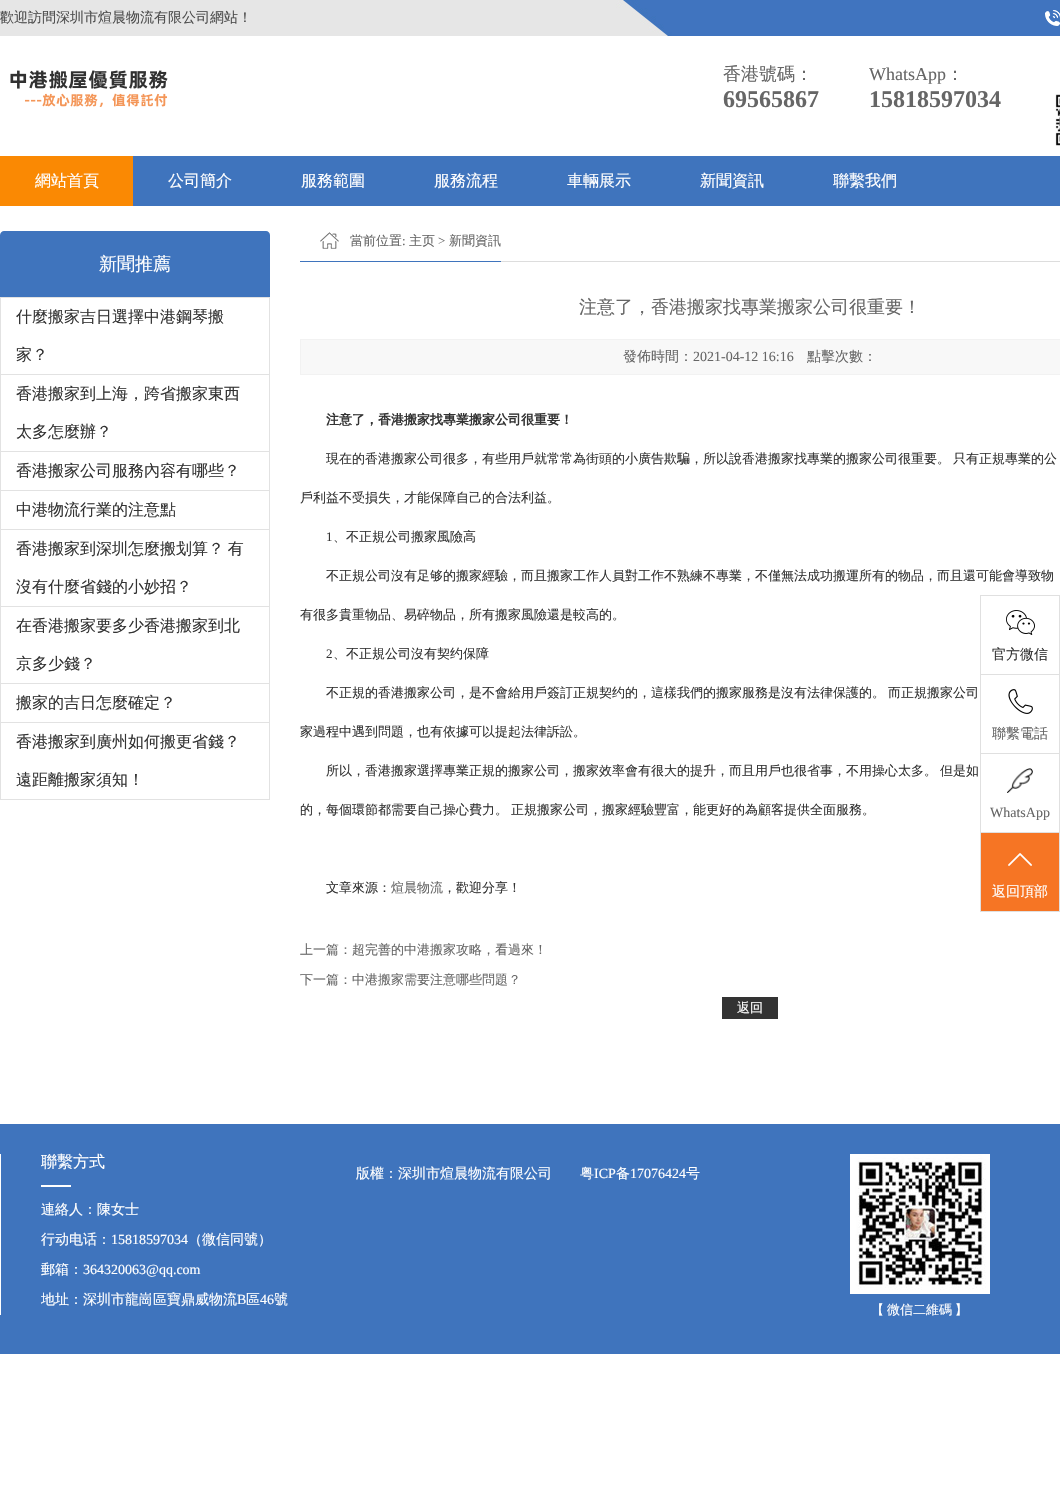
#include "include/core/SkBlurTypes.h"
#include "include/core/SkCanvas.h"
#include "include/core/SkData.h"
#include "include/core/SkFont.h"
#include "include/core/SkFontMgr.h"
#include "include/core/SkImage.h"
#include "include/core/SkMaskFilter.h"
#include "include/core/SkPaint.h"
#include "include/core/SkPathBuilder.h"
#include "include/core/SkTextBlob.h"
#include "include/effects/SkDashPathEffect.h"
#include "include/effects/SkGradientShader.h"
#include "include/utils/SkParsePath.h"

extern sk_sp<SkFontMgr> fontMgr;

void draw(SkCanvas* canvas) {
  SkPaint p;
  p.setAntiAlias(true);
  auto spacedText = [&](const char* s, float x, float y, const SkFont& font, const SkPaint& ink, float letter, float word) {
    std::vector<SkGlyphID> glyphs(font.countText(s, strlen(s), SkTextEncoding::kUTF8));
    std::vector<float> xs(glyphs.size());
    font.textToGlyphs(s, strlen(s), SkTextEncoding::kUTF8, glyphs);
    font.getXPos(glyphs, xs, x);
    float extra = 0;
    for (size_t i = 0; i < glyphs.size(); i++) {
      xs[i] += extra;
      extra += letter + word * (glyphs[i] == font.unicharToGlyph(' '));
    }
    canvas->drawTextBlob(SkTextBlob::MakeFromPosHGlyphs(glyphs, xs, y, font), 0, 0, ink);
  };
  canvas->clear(SK_ColorWHITE);
  canvas->drawImageRect(SkImages::DeferredFromEncodedData(SkData::MakeFromFileName("images/1.png")), SkRect::MakeLTRB(0, 0, 1060, 36), SkSamplingOptions());
  canvas->drawImageRect(SkImages::DeferredFromEncodedData(SkData::MakeFromFileName("images/2.png")), SkRect::MakeLTRB(1045, 10, 1060, 26), SkSamplingOptions());
  canvas->drawImageRect(SkImages::DeferredFromEncodedData(SkData::MakeFromFileName("images/3.png")), SkRect::MakeLTRB(10, 70, 168, 107), SkSamplingOptions());
  canvas->drawImageRect(SkImages::DeferredFromEncodedData(SkData::MakeFromFileName("images/4.png")), SkRect::MakeLTRB(1055, 94, 1060, 146), SkSamplingOptions());
  p.setColor(SkColorSetRGB(63, 116, 189));
  canvas->drawRect(SkRect::MakeLTRB(133, 156, 1060, 206), p);
  p.setColor(SkColorSetRGB(250, 137, 3));
  canvas->drawRect(SkRect::MakeLTRB(0, 156, 133, 206), p);
  p.setColor(SkColorSetRGB(63, 116, 189));
  canvas->drawPath(SkPathBuilder().moveTo(4, 231).lineTo(266, 231).cubicTo(268, 231, 270, 233, 270, 235).lineTo(270, 297).lineTo(0, 297).lineTo(0, 235).cubicTo(0, 233, 2, 231, 4, 231).close().detach(), p);
  p.setColor(SkColorSetRGB(226, 226, 226));
  canvas->drawRect(SkRect::MakeLTRB(0, 297, 270, 298), p);
  canvas->drawRect(SkRect::MakeLTRB(269, 297, 270, 800), p);
  canvas->drawRect(SkRect::MakeLTRB(0, 297, 1, 800), p);
  canvas->drawRect(SkRect::MakeLTRB(1, 374, 269, 375), p);
  canvas->drawRect(SkRect::MakeLTRB(1, 451, 269, 452), p);
  canvas->drawRect(SkRect::MakeLTRB(1, 490, 269, 491), p);
  canvas->drawRect(SkRect::MakeLTRB(1, 529, 269, 530), p);
  canvas->drawRect(SkRect::MakeLTRB(1, 606, 269, 607), p);
  canvas->drawRect(SkRect::MakeLTRB(1, 683, 269, 684), p);
  canvas->drawRect(SkRect::MakeLTRB(1, 722, 269, 723), p);
  canvas->drawRect(SkRect::MakeLTRB(1, 799, 269, 800), p);
  p.setColor(SkColorSetRGB(221, 221, 221));
  canvas->drawRect(SkRect::MakeLTRB(501, 261, 1060, 262), p);
  canvas->drawImageRect(SkImages::DeferredFromEncodedData(SkData::MakeFromFileName("images/5.png")), SkRect::MakeLTRB(320, 232, 339, 249), SkSamplingOptions());
  p.setColor(SkColorSetRGB(63, 116, 189));
  canvas->drawRect(SkRect::MakeLTRB(300, 261, 501, 262), p);
  p.setColor(SkColorSetRGB(248, 248, 248));
  canvas->drawRect(SkRect::MakeLTRB(300.5f, 339.5f, 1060.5f, 374.5f), p);
  p.setStyle(SkPaint::kStroke_Style);
  p.setStrokeWidth(1);
  p.setColor(SkColorSetRGB(242, 242, 242));
  canvas->drawRect(SkRect::MakeLTRB(300.5f, 339.5f, 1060.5f, 374.5f), p);
  p.setStyle(SkPaint::kFill_Style);
  p.setColor(SkColorSetRGB(51, 51, 51));
  canvas->drawRect(SkRect::MakeLTRB(722, 997, 778, 1019), p);
  p.setColor(SkColorSetRGB(63, 116, 189));
  canvas->drawRect(SkRect::MakeLTRB(0, 1124, 1060, 1354), p);
  p.setColor(SkColorSetRGB(224, 224, 224));
  canvas->drawRect(SkRect::MakeLTRB(980, 595, 1060, 596), p);
  canvas->drawRect(SkRect::MakeLTRB(1059, 595, 1060, 912), p);
  canvas->drawRect(SkRect::MakeLTRB(980, 595, 981, 912), p);
  canvas->drawRect(SkRect::MakeLTRB(981, 674, 1059, 675), p);
  canvas->drawImageRect(SkImages::DeferredFromEncodedData(SkData::MakeFromFileName("images/6.png")), SkRect::MakeLTRB(1006, 610, 1035, 635), SkSamplingOptions());
  canvas->drawRect(SkRect::MakeLTRB(981, 753, 1059, 754), p);
  canvas->drawImageRect(SkImages::DeferredFromEncodedData(SkData::MakeFromFileName("images/7.png")), SkRect::MakeLTRB(1008, 689, 1033, 714), SkSamplingOptions());
  canvas->drawRect(SkRect::MakeLTRB(981, 832, 1059, 833), p);
  canvas->drawImageRect(SkImages::DeferredFromEncodedData(SkData::MakeFromFileName("images/8.png")), SkRect::MakeLTRB(1007, 768, 1033, 793), SkSamplingOptions());
  p.setColor(SkColorSetRGB(246, 117, 36));
  canvas->drawRect(SkRect::MakeLTRB(981, 833, 1059, 911), p);
  p.setColor(SkColorSetRGB(224, 224, 224));
  canvas->drawRect(SkRect::MakeLTRB(981, 911, 1059, 912), p);
  canvas->drawImageRect(SkImages::DeferredFromEncodedData(SkData::MakeFromFileName("images/9.png")), SkRect::MakeLTRB(1008, 853, 1032, 866), SkSamplingOptions());
  p.setColor(SK_ColorWHITE);
  canvas->drawRect(SkRect::MakeLTRB(0, 1154, 1, 1315), p);
  canvas->drawRect(SkRect::MakeLTRB(41, 1185, 71, 1187), p);
  canvas->drawImageRect(SkImages::DeferredFromEncodedData(SkData::MakeFromFileName("images/10.png")), SkRect::MakeLTRB(850, 1154, 990, 1294), SkSamplingOptions());
  SkFont font1(fontMgr->matchFamilyStyle("WenQuanYi Zen Hei", SkFontStyle(500, SkFontStyle::kNormal_Width, SkFontStyle::kUpright_Slant)), 14);
  font1.setSubpixel(true);
  p.setColor(SkColorSetRGB(76, 76, 76));
  canvas->drawString("歡迎訪問深圳市煊晨物流有限公司網站！", 0, 22, font1, p);
  SkFont font2(fontMgr->matchFamilyStyle("WenQuanYi Zen Hei", SkFontStyle(500, SkFontStyle::kNormal_Width, SkFontStyle::kUpright_Slant)), 18);
  font2.setSubpixel(true);
  p.setColor(SkColorSetRGB(102, 102, 102));
  canvas->drawString("香港號碼：", 723, 80, font2, p);
  SkFont font3(fontMgr->matchFamilyStyle("Liberation Serif", SkFontStyle::Bold()), 24);
  font3.setSubpixel(true);
  canvas->drawString("69565867", 723, 107, font3, p);
  SkFont font4(fontMgr->matchFamilyStyle("Liberation Serif", SkFontStyle::Normal()), 18);
  font4.setSubpixel(true);
  canvas->drawString("WhatsApp", 869, 80, font4, p);
  canvas->drawString("：", 946, 80, font2, p);
  canvas->drawString("15818597034", 869, 107, font3, p);
  SkFont font5(fontMgr->matchFamilyStyle("WenQuanYi Zen Hei", SkFontStyle(500, SkFontStyle::kNormal_Width, SkFontStyle::kUpright_Slant)), 16);
  font5.setSubpixel(true);
  p.setColor(SK_ColorWHITE);
  canvas->drawString("網站首頁", 35, 186, font5, p);
  canvas->drawString("公司簡介", 168, 186, font5, p);
  canvas->drawString("服務範圍", 301, 186, font5, p);
  canvas->drawString("服務流程", 434, 186, font5, p);
  canvas->drawString("車輛展示", 567, 186, font5, p);
  canvas->drawString("新聞資訊", 700, 186, font5, p);
  canvas->drawString("聯繫我們", 833, 186, font5, p);
  canvas->drawString("新聞推薦", 99, 270, font2, p);
  p.setColor(SkColorSetRGB(51, 51, 51));
  canvas->drawString("什麼搬家吉日選擇中港鋼琴搬", 16, 322, font5, p);
  canvas->drawString("家？", 16, 360, font5, p);
  canvas->drawString("香港搬家到上海，跨省搬家東西", 16, 399, font5, p);
  canvas->drawString("太多怎麼辦？", 16, 437, font5, p);
  canvas->drawString("香港搬家公司服務內容有哪些？", 16, 476, font5, p);
  canvas->drawString("中港物流行業的注意點", 16, 515, font5, p);
  spacedText("香港搬家到深圳怎麼搬划算？ 有", 16, 554, font5, p, 0, -1);
  canvas->drawString("沒有什麼省錢的小妙招？", 16, 592, font5, p);
  canvas->drawString("在香港搬家要多少香港搬家到北", 16, 631, font5, p);
  canvas->drawString("京多少錢？", 16, 669, font5, p);
  canvas->drawString("搬家的吉日怎麼確定？", 16, 708, font5, p);
  canvas->drawString("香港搬家到廣州如何搬更省錢？", 16, 747, font5, p);
  canvas->drawString("遠距離搬家須知！", 16, 785, font5, p);
  SkFont font6(fontMgr->matchFamilyStyle("WenQuanYi Zen Hei", SkFontStyle(500, SkFontStyle::kNormal_Width, SkFontStyle::kUpright_Slant)), 13);
  font6.setSubpixel(true);
  p.setColor(SkColorSetRGB(102, 102, 102));
  canvas->drawString("當前位置", 350, 245, font6, p);
  SkFont font7(fontMgr->matchFamilyStyle("Liberation Serif", SkFontStyle::Normal()), 13);
  font7.setSubpixel(true);
  canvas->drawString(":", 402, 245, font7, p);
  canvas->drawString("主页", 409, 245, font6, p);
  canvas->drawString(">", 438, 245, font7, p);
  canvas->drawString("新聞資訊", 449, 245, font6, p);
  canvas->drawString("注意了，香港搬家找專業搬家公司很重要！", 579, 313, font2, p);
  canvas->drawString("發佈時間：", 623, 361, font1, p);
  SkFont font8(fontMgr->matchFamilyStyle("Liberation Serif", SkFontStyle::Normal()), 14);
  font8.setSubpixel(true);
  canvas->drawString("2021-04-12 16:16", 693, 361, font8, p);
  canvas->drawString("點擊次數：", 807, 361, font1, p);
  SkFont font9(fontMgr->matchFamilyStyle("WenQuanYi Zen Hei", SkFontStyle::Bold()), 13);
  font9.setSubpixel(true);
  p.setColor(SkColorSetRGB(51, 51, 51));
  canvas->drawString("注意了，香港搬家找專業搬家公司很重要！", 326, 424, font9, p);
  spacedText("現在的香港搬家公司很多，有些用戶就常常為街頭的小廣告欺騙，所以說香港搬家找專業的搬家公司很重要。 只有正規專業的公", 326, 463, font6, p, 0, -1);
  canvas->drawString("戶利益不受損失，才能保障自己的合法利益。", 300, 502, font6, p);
  canvas->drawString("1", 326, 541, font7, p);
  canvas->drawString("、不正規公司搬家風險高", 333, 541, font6, p);
  spacedText("不正規公司沒有足够的搬家經驗，而且搬家工作人員對工作不熟練不專業，不僅無法成功搬運所有的物品，而且還可能會導致物", 326, 580, font6, p, 0, -1);
  canvas->drawString("有很多貴重物品、易碎物品，所有搬家風險還是較高的。", 300, 619, font6, p);
  canvas->drawString("2", 326, 658, font7, p);
  canvas->drawString("、不正規公司沒有契约保障", 333, 658, font6, p);
  spacedText("不正規的香港搬家公司，是不會給用戶簽訂正規契约的，這樣我們的搬家服務是沒有法律保護的。 而正規搬家公司", 326, 697, font6, p, 0, -1);
  canvas->drawString("家過程中遇到問題，也有依據可以提起法律訴訟。", 300, 736, font6, p);
  spacedText("所以，香港搬家選擇專業正規的搬家公司，搬家效率會有很大的提升，而且用戶也很省事，不用操心太多。 但是如", 326, 775, font6, p, 0, -1);
  spacedText("的，每個環節都需要自己操心費力。 正規搬家公司，搬家經驗豐富，能更好的為顧客提供全面服務。", 300, 814, font6, p, 0, -1);
  canvas->drawString("文章來源：", 326, 892, font6, p);
  p.setColor(SkColorSetRGB(102, 102, 102));
  canvas->drawString("煊晨物流", 391, 892, font6, p);
  p.setColor(SkColorSetRGB(51, 51, 51));
  canvas->drawString("，歡迎分享！", 443, 892, font6, p);
  p.setColor(SkColorSetRGB(102, 102, 102));
  canvas->drawString("上一篇：超完善的中港搬家攻略，看過來！", 300, 954, font6, p);
  canvas->drawString("下一篇：中港搬家需要注意哪些問題？", 300, 984, font6, p);
  p.setColor(SK_ColorWHITE);
  canvas->drawString("返回", 737, 1012, font6, p);
  p.setColor(SkColorSetRGB(51, 51, 51));
  canvas->drawString("官方微信", 992, 659, font1, p);
  p.setColor(SkColorSetRGB(102, 102, 102));
  canvas->drawString("聯繫電話", 992, 738, font1, p);
  canvas->drawString("WhatsApp", 990, 817, font8, p);
  p.setColor(SK_ColorWHITE);
  canvas->drawString("返回頂部", 992, 896, font1, p);
  canvas->drawString("聯繫方式", 41, 1167, font5, p);
  canvas->drawString("連絡人：陳女士", 41, 1214, font1, p);
  canvas->drawString("行动电话：", 41, 1244, font1, p);
  canvas->drawString("15818597034", 111, 1244, font8, p);
  canvas->drawString("（微信同號）", 188, 1244, font1, p);
  canvas->drawString("郵箱：", 41, 1274, font1, p);
  canvas->drawString("364320063@qq.com", 83, 1274, font8, p);
  canvas->drawString("地址：深圳市龍崗區寶鼎威物流", 41, 1304, font1, p);
  canvas->drawString("B", 237, 1304, font8, p);
  canvas->drawString("區", 246, 1304, font1, p);
  canvas->drawString("46", 260, 1304, font8, p);
  canvas->drawString("號", 274, 1304, font1, p);
  canvas->drawString("版權：深圳市煊晨物流有限公司", 356, 1178, font1, p);
  canvas->drawString("粤", 580, 1178, font1, p);
  canvas->drawString("ICP", 594, 1178, font8, p);
  canvas->drawString("备", 616, 1178, font1, p);
  canvas->drawString("17076424", 630, 1178, font8, p);
  canvas->drawString("号", 686, 1178, font1, p);
  spacedText("【 微信二維碼 】", 871, 1314, font6, p, 0, -1);
}
